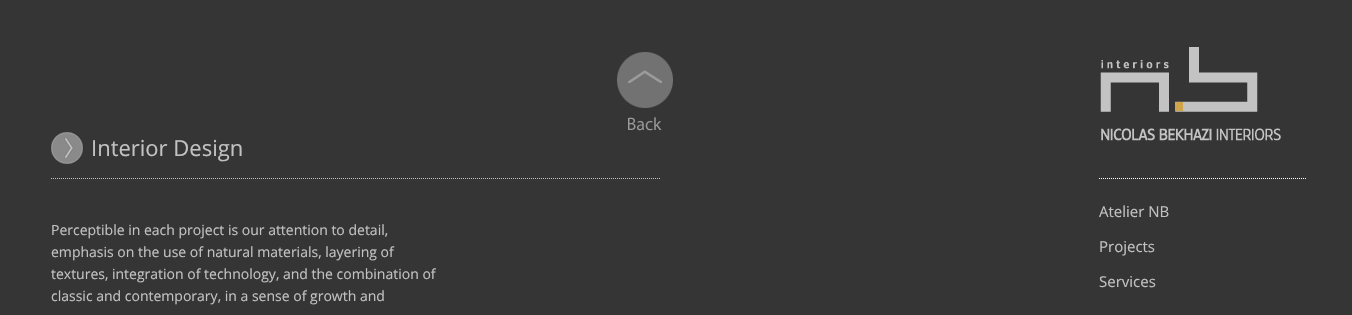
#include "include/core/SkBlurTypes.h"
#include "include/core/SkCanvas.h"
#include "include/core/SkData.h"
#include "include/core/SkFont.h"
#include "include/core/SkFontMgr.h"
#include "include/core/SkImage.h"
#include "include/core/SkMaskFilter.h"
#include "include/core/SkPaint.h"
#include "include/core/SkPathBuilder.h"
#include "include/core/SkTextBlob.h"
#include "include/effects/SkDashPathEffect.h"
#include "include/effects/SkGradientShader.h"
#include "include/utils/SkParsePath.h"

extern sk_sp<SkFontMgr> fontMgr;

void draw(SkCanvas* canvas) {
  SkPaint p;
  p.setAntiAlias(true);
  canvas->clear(SkColorSetRGB(53, 53, 53));
  canvas->drawImageRect(SkImages::DeferredFromEncodedData(SkData::MakeFromFileName("images/1.png")), SkRect::MakeLTRB(617, 52, 673, 131), SkSamplingOptions());
  canvas->drawImageRect(SkImages::DeferredFromEncodedData(SkData::MakeFromFileName("images/2.png")), SkRect::MakeLTRB(51, 132, 83, 164), SkSamplingOptions());
  p.setStyle(SkPaint::kStroke_Style);
  p.setStrokeWidth(1);
  p.setColor(SkColorSetRGB(194, 194, 194));
  p.setPathEffect(SkDashPathEffect::Make({{1, 1}}, 0));
  canvas->drawPath(SkPathBuilder().moveTo(51, 178.5f).lineTo(661, 178.5f).detach(), p);
  p.setPathEffect(nullptr);
  p.setColor(SK_ColorWHITE);
  p.setPathEffect(SkDashPathEffect::Make({{1, 1}}, 0));
  canvas->drawPath(SkPathBuilder().moveTo(1099, 178.5f).lineTo(1306, 178.5f).detach(), p);
  p.setPathEffect(nullptr);
  canvas->drawImageRect(SkImages::DeferredFromEncodedData(SkData::MakeFromFileName("images/3.png")), SkRect::MakeLTRB(1100, 47, 1281, 141), SkSamplingOptions());
  SkFont font1(fontMgr->matchFamilyStyle("Open Sans", SkFontStyle::Normal()), 22);
  font1.setSubpixel(true);
  p.setStyle(SkPaint::kFill_Style);
  p.setColor(SkColorSetRGB(194, 194, 194));
  canvas->drawString("Interior Design", 91, 156, font1, p);
  SkFont font2(fontMgr->matchFamilyStyle("Open Sans", SkFontStyle::Normal()), 14);
  font2.setSubpixel(true);
  canvas->drawString("Perceptible in each project is our attention to detail,", 51, 235, font2, p);
  canvas->drawString("emphasis on the use of natural materials, layering of", 51, 257, font2, p);
  canvas->drawString("textures, integration of technology, and the combination of", 51, 279, font2, p);
  canvas->drawString("classic and contemporary, in a sense of growth and", 51, 301, font2, p);
  SkFont font3(fontMgr->matchFamilyStyle("Open Sans", SkFontStyle::Normal()), 15);
  font3.setSubpixel(true);
  canvas->drawString("Atelier NB", 1099, 217, font3, p);
  canvas->drawString("Projects", 1099, 252, font3, p);
  canvas->drawString("Services", 1099, 287, font3, p);
}
